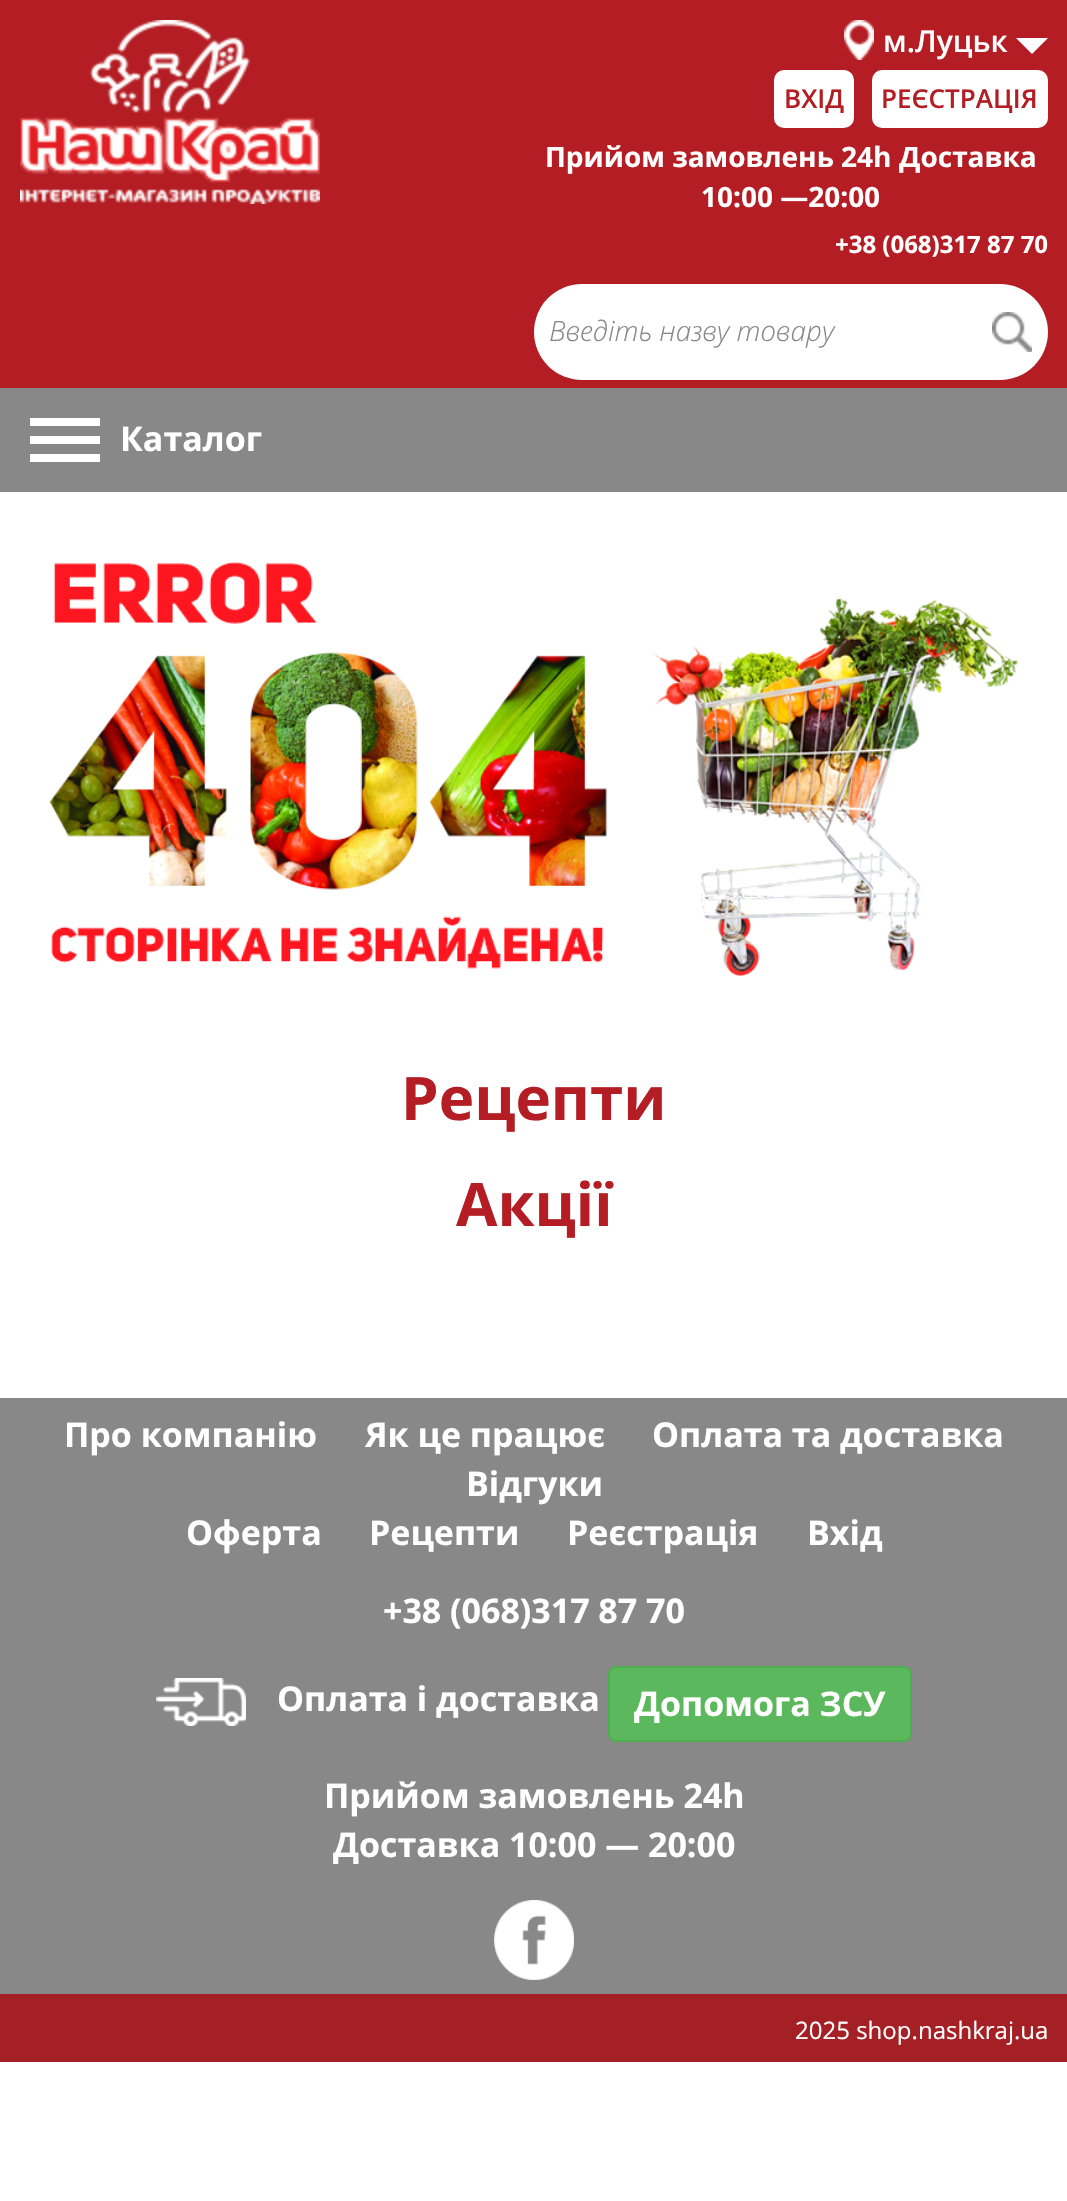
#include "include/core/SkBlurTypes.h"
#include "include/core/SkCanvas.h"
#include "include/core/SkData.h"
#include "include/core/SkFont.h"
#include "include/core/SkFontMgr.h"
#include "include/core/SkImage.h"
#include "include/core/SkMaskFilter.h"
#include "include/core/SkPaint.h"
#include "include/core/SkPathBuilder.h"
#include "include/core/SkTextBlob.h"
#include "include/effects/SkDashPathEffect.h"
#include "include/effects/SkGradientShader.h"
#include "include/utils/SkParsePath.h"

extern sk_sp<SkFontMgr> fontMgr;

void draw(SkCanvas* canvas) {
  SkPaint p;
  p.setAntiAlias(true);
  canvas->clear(SK_ColorWHITE);
  p.setColor(SkColorSetRGB(179, 29, 35));
  canvas->drawRect(SkRect::MakeLTRB(0, 0, 1067, 388), p);
  canvas->drawImageRect(SkImages::DeferredFromEncodedData(SkData::MakeFromFileName("images/1.png")), SkRect::MakeLTRB(20, 20, 320, 204), SkSamplingOptions());
  canvas->drawImageRect(SkImages::DeferredFromEncodedData(SkData::MakeFromFileName("images/2.png")), SkRect::MakeLTRB(844, 20, 874, 60), SkSamplingOptions());
  p.setColor(SK_ColorWHITE);
  canvas->drawPath(SkPathBuilder().moveTo(1016, 38).lineTo(1048, 38).lineTo(1032, 54).close().detach(), p);
  canvas->drawRoundRect(SkRect::MakeLTRB(774, 70, 854, 128), 10, 10, p);
  canvas->drawRoundRect(SkRect::MakeLTRB(872, 70, 1048, 128), 10, 10, p);
  canvas->drawRoundRect(SkRect::MakeLTRB(534, 284, 1048, 380), 48, 48, p);
  canvas->drawImageRect(SkImages::DeferredFromEncodedData(SkData::MakeFromFileName("images/3.png")), SkRect::MakeLTRB(992, 312, 1032, 352), SkSamplingOptions());
  p.setColor(SkColorSetRGB(136, 136, 136));
  canvas->drawRect(SkRect::MakeLTRB(0, 388, 1067, 492), p);
  p.setColor(SK_ColorWHITE);
  canvas->drawRect(SkRect::MakeLTRB(30, 418, 100, 426), p);
  canvas->drawRect(SkRect::MakeLTRB(30, 436, 100, 444), p);
  canvas->drawRect(SkRect::MakeLTRB(30, 454, 100, 462), p);
  canvas->drawImageRect(SkImages::DeferredFromEncodedData(SkData::MakeFromFileName("images/4.png")), SkRect::MakeLTRB(50, 562, 1018, 976), SkSamplingOptions());
  p.setColor(SkColorSetRGB(136, 136, 136));
  canvas->drawRect(SkRect::MakeLTRB(0, 1398, 1067, 1994), p);
  canvas->drawImageRect(SkImages::DeferredFromEncodedData(SkData::MakeFromFileName("images/5.png")), SkRect::MakeLTRB(156, 1678, 246, 1726), SkSamplingOptions());
  p.setColor(SkColorSetRGB(92, 184, 92));
  canvas->drawRoundRect(SkRect::MakeLTRB(609, 1667, 911, 1741), 7, 7, p);
  p.setStyle(SkPaint::kStroke_Style);
  p.setStrokeWidth(2);
  p.setColor(SkColorSetRGB(76, 174, 76));
  canvas->drawRoundRect(SkRect::MakeLTRB(609, 1667, 911, 1741), 7, 7, p);
  canvas->drawImageRect(SkImages::DeferredFromEncodedData(SkData::MakeFromFileName("images/6.png")), SkRect::MakeLTRB(494, 1900, 574, 1980), SkSamplingOptions());
  p.setStyle(SkPaint::kFill_Style);
  p.setColor(SkColorSetRGB(165, 32, 37));
  canvas->drawRect(SkRect::MakeLTRB(0, 1994, 1067, 2062), p);
  SkFont font1(fontMgr->matchFamilyStyle("Open Sans", SkFontStyle(600, SkFontStyle::kNormal_Width, SkFontStyle::kUpright_Slant)), 30);
  font1.setSubpixel(true);
  p.setColor(SK_ColorWHITE);
  canvas->drawString("м.Луцьк", 883, 52, font1, p);
  SkFont font2(fontMgr->matchFamilyStyle("Open Sans", SkFontStyle(600, SkFontStyle::kNormal_Width, SkFontStyle::kUpright_Slant)), 26);
  font2.setSubpixel(true);
  p.setColor(SkColorSetRGB(179, 29, 35));
  canvas->drawString("ВХІД", 784, 108, font2, p);
  canvas->drawString("РЕЄСТРАЦІЯ", 881, 108, font2, p);
  SkFont font3(fontMgr->matchFamilyStyle("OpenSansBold", SkFontStyle::Bold()), 28);
  font3.setSubpixel(true);
  p.setColor(SK_ColorWHITE);
  canvas->drawString("Прийом замовлень 24h", 545, 167, font3, p);
  canvas->drawString("Доставка", 899, 167, font3, p);
  canvas->drawString("10:00 —20:00", 701, 207, font3, p);
  SkFont font4(fontMgr->matchFamilyStyle("OpenSansBold", SkFontStyle::Bold()), 24);
  font4.setSubpixel(true);
  canvas->drawString("+38 (068)317 87 70", 835, 253, font4, p);
  SkFont font5(fontMgr->matchFamilyStyle("Open Sans", SkFontStyle(300, SkFontStyle::kNormal_Width, SkFontStyle::kItalic_Slant)), 28);
  font5.setSubpixel(true);
  p.setColor(SkColorSetRGB(136, 136, 136));
  canvas->drawString("Введіть назву товару", 549, 341, font5, p);
  SkFont font6(fontMgr->matchFamilyStyle("OpenSansBold", SkFontStyle::Bold()), 34);
  font6.setSubpixel(true);
  p.setColor(SK_ColorWHITE);
  canvas->drawString("Каталог", 120, 451, font6, p);
  SkFont font7(fontMgr->matchFamilyStyle("OpenSansBold", SkFontStyle::Bold()), 60);
  font7.setSubpixel(true);
  p.setColor(SkColorSetRGB(179, 29, 35));
  canvas->drawString("Рецепти", 401, 1120, font7, p);
  canvas->drawString("Акції", 456, 1226, font7, p);
  p.setColor(SK_ColorWHITE);
  canvas->drawString("Про компанію", 64, 1447, font6, p);
  canvas->drawString("Як це працює", 365, 1447, font6, p);
  canvas->drawString("Оплата та доставка", 652, 1447, font6, p);
  canvas->drawString("Відгуки", 466, 1496, font6, p);
  canvas->drawString("Оферта", 186, 1545, font6, p);
  canvas->drawString("Рецепти", 369, 1545, font6, p);
  canvas->drawString("Реєстрація", 567, 1545, font6, p);
  canvas->drawString("Вхід", 807, 1545, font6, p);
  canvas->drawString("+38 (068)317 87 70", 383, 1623, font6, p);
  canvas->drawString("Оплата і доставка", 277, 1711, font6, p);
  canvas->drawString("Допомога ЗСУ", 634, 1716, font6, p);
  canvas->drawString("Прийом замовлень 24h", 324, 1808, font6, p);
  canvas->drawString("Доставка 10:00 — 20:00", 333, 1857, font6, p);
  SkFont font8(fontMgr->matchFamilyStyle("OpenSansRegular", SkFontStyle::Normal()), 24);
  font8.setSubpixel(true);
  canvas->drawString("2025 shop.nashkraj.ua", 795, 2039, font8, p);
}
